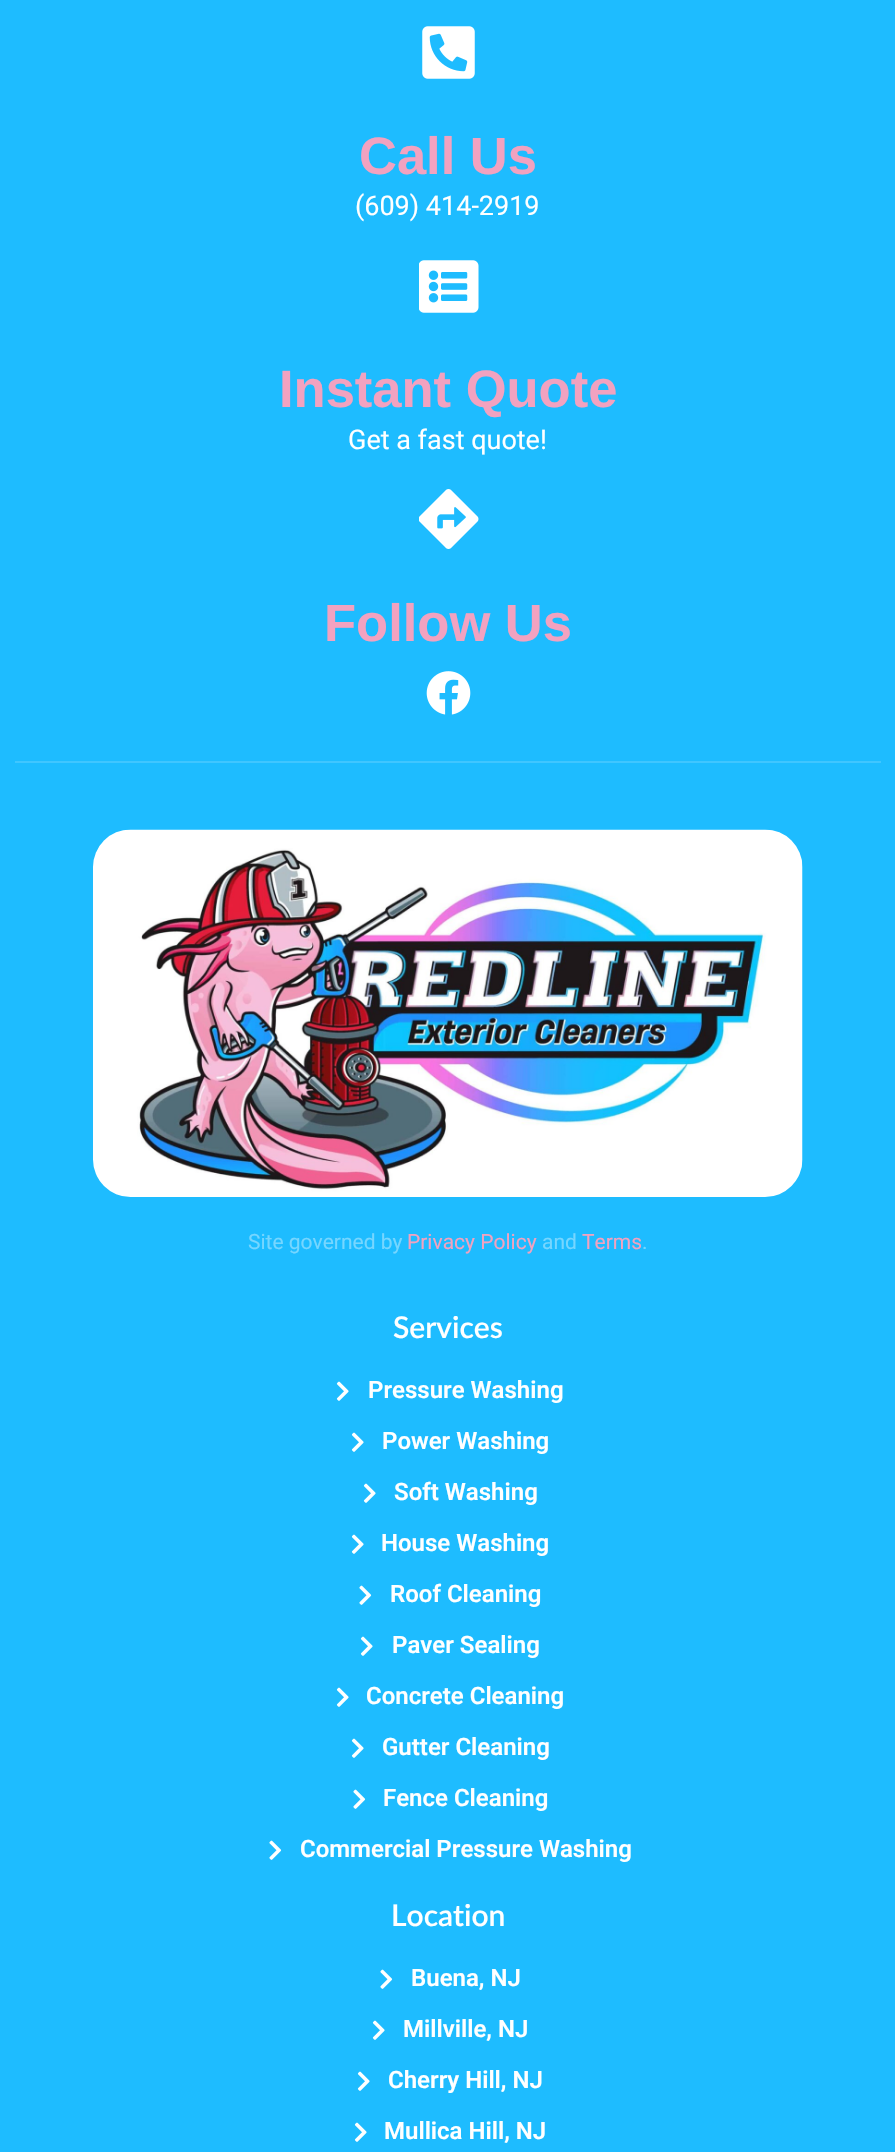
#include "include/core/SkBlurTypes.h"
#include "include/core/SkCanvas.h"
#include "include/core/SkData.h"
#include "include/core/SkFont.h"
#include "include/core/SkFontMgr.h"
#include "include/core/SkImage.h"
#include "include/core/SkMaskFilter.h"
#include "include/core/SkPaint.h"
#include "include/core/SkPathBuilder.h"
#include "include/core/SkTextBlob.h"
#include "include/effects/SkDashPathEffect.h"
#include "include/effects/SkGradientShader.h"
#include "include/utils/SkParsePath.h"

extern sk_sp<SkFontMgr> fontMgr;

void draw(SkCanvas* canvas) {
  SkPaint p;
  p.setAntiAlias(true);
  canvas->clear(SkColorSetRGB(30, 188, 255));
  canvas->drawImageRect(SkImages::DeferredFromEncodedData(SkData::MakeFromFileName("images/1.png")), SkRect::MakeLTRB(422, 26, 475, 79), SkSamplingOptions());
  canvas->drawImageRect(SkImages::DeferredFromEncodedData(SkData::MakeFromFileName("images/2.png")), SkRect::MakeLTRB(419, 260, 479, 313), SkSamplingOptions());
  canvas->drawImageRect(SkImages::DeferredFromEncodedData(SkData::MakeFromFileName("images/3.png")), SkRect::MakeLTRB(419, 489, 479, 549), SkSamplingOptions());
  canvas->drawImageRect(SkImages::DeferredFromEncodedData(SkData::MakeFromFileName("images/4.png")), SkRect::MakeLTRB(426, 671, 471, 715), SkSamplingOptions());
  p.setColor(SkColorSetRGB(64, 198, 255));
  canvas->drawRect(SkRect::MakeLTRB(15, 761, 881, 763), p);
  canvas->drawImageRect(SkImages::DeferredFromEncodedData(SkData::MakeFromFileName("images/5.png")), SkRect::MakeLTRB(93, 829, 803, 1197), SkSamplingOptions());
  canvas->drawImageRect(SkImages::DeferredFromEncodedData(SkData::MakeFromFileName("images/6.png")), SkRect::MakeLTRB(336, 1381, 349, 1401), SkSamplingOptions());
  canvas->drawImageRect(SkImages::DeferredFromEncodedData(SkData::MakeFromFileName("images/6.png")), SkRect::MakeLTRB(351, 1432, 364, 1452), SkSamplingOptions());
  canvas->drawImageRect(SkImages::DeferredFromEncodedData(SkData::MakeFromFileName("images/6.png")), SkRect::MakeLTRB(363, 1483, 376, 1503), SkSamplingOptions());
  canvas->drawImageRect(SkImages::DeferredFromEncodedData(SkData::MakeFromFileName("images/6.png")), SkRect::MakeLTRB(351, 1534, 364, 1554), SkSamplingOptions());
  canvas->drawImageRect(SkImages::DeferredFromEncodedData(SkData::MakeFromFileName("images/7.png")), SkRect::MakeLTRB(359, 1585, 372, 1605), SkSamplingOptions());
  canvas->drawImageRect(SkImages::DeferredFromEncodedData(SkData::MakeFromFileName("images/6.png")), SkRect::MakeLTRB(360, 1636, 373, 1656), SkSamplingOptions());
  canvas->drawImageRect(SkImages::DeferredFromEncodedData(SkData::MakeFromFileName("images/6.png")), SkRect::MakeLTRB(336, 1687, 349, 1707), SkSamplingOptions());
  canvas->drawImageRect(SkImages::DeferredFromEncodedData(SkData::MakeFromFileName("images/6.png")), SkRect::MakeLTRB(351, 1738, 364, 1758), SkSamplingOptions());
  canvas->drawImageRect(SkImages::DeferredFromEncodedData(SkData::MakeFromFileName("images/7.png")), SkRect::MakeLTRB(353, 1789, 366, 1809), SkSamplingOptions());
  canvas->drawImageRect(SkImages::DeferredFromEncodedData(SkData::MakeFromFileName("images/7.png")), SkRect::MakeLTRB(269, 1840, 282, 1860), SkSamplingOptions());
  canvas->drawImageRect(SkImages::DeferredFromEncodedData(SkData::MakeFromFileName("images/7.png")), SkRect::MakeLTRB(380, 1969, 393, 1989), SkSamplingOptions());
  canvas->drawImageRect(SkImages::DeferredFromEncodedData(SkData::MakeFromFileName("images/6.png")), SkRect::MakeLTRB(372, 2020, 385, 2040), SkSamplingOptions());
  canvas->drawImageRect(SkImages::DeferredFromEncodedData(SkData::MakeFromFileName("images/6.png")), SkRect::MakeLTRB(357, 2071, 370, 2091), SkSamplingOptions());
  canvas->drawImageRect(SkImages::DeferredFromEncodedData(SkData::MakeFromFileName("images/6.png")), SkRect::MakeLTRB(354, 2122, 367, 2142), SkSamplingOptions());
  SkFont font1(fontMgr->matchFamilyStyle("Liberation Sans", SkFontStyle::Bold()), 52.5f);
  font1.setSubpixel(true);
  p.setColor(SkColorSetRGB(242, 162, 192));
  canvas->drawString("Call Us", 359, 174, font1, p);
  SkFont font2(fontMgr->matchFamilyStyle("Roboto", SkFontStyle::Normal()), 27);
  font2.setSubpixel(true);
  p.setColor(SK_ColorWHITE);
  canvas->drawString("(609) 414-2919", 355, 215, font2, p);
  p.setColor(SkColorSetRGB(242, 162, 192));
  canvas->drawString("Instant Quote", 279, 407, font1, p);
  p.setColor(SK_ColorWHITE);
  canvas->drawString("Get a fast quote!", 348, 449, font2, p);
  p.setColor(SkColorSetRGB(242, 162, 192));
  canvas->drawString("Follow Us", 324, 641, font1, p);
  SkFont font3(fontMgr->matchFamilyStyle("Roboto", SkFontStyle::Normal()), 21);
  font3.setSubpixel(true);
  p.setColor(SkColorSetRGB(118, 214, 255));
  canvas->drawString("Site governed by", 248, 1249, font3, p);
  p.setColor(SkColorSetRGB(242, 162, 192));
  canvas->drawString("Privacy Policy", 407, 1249, font3, p);
  p.setColor(SkColorSetRGB(118, 214, 255));
  canvas->drawString("and", 542, 1249, font3, p);
  p.setColor(SkColorSetRGB(242, 162, 192));
  canvas->drawString("Terms", 582, 1249, font3, p);
  p.setColor(SkColorSetRGB(118, 214, 255));
  canvas->drawString(".", 642, 1249, font3, p);
  SkFont font4(fontMgr->matchFamilyStyle("Lato", SkFontStyle(600, SkFontStyle::kNormal_Width, SkFontStyle::kUpright_Slant)), 30);
  font4.setSubpixel(true);
  p.setColor(SK_ColorWHITE);
  canvas->drawString("Services", 393, 1338, font4, p);
  SkFont font5(fontMgr->matchFamilyStyle("Roboto", SkFontStyle(600, SkFontStyle::kNormal_Width, SkFontStyle::kUpright_Slant)), 24);
  font5.setSubpixel(true);
  canvas->drawString("Pressure Washing", 368, 1398, font5, p);
  canvas->drawString("Power Washing", 382, 1449, font5, p);
  canvas->drawString("Soft Washing", 394, 1500, font5, p);
  canvas->drawString("House Washing", 381, 1551, font5, p);
  canvas->drawString("Roof Cleaning", 390, 1602, font5, p);
  canvas->drawString("Paver Sealing", 392, 1653, font5, p);
  canvas->drawString("Concrete Cleaning", 366, 1704, font5, p);
  canvas->drawString("Gutter Cleaning", 382, 1755, font5, p);
  canvas->drawString("Fence Cleaning", 383, 1806, font5, p);
  canvas->drawString("Commercial Pressure Washing", 300, 1857, font5, p);
  canvas->drawString("Location", 391, 1926, font4, p);
  canvas->drawString("Buena, NJ", 411, 1986, font5, p);
  canvas->drawString("Millville, NJ", 403, 2037, font5, p);
  canvas->drawString("Cherry Hill, NJ", 388, 2088, font5, p);
  canvas->drawString("Mullica Hill, NJ", 384, 2139, font5, p);
}
